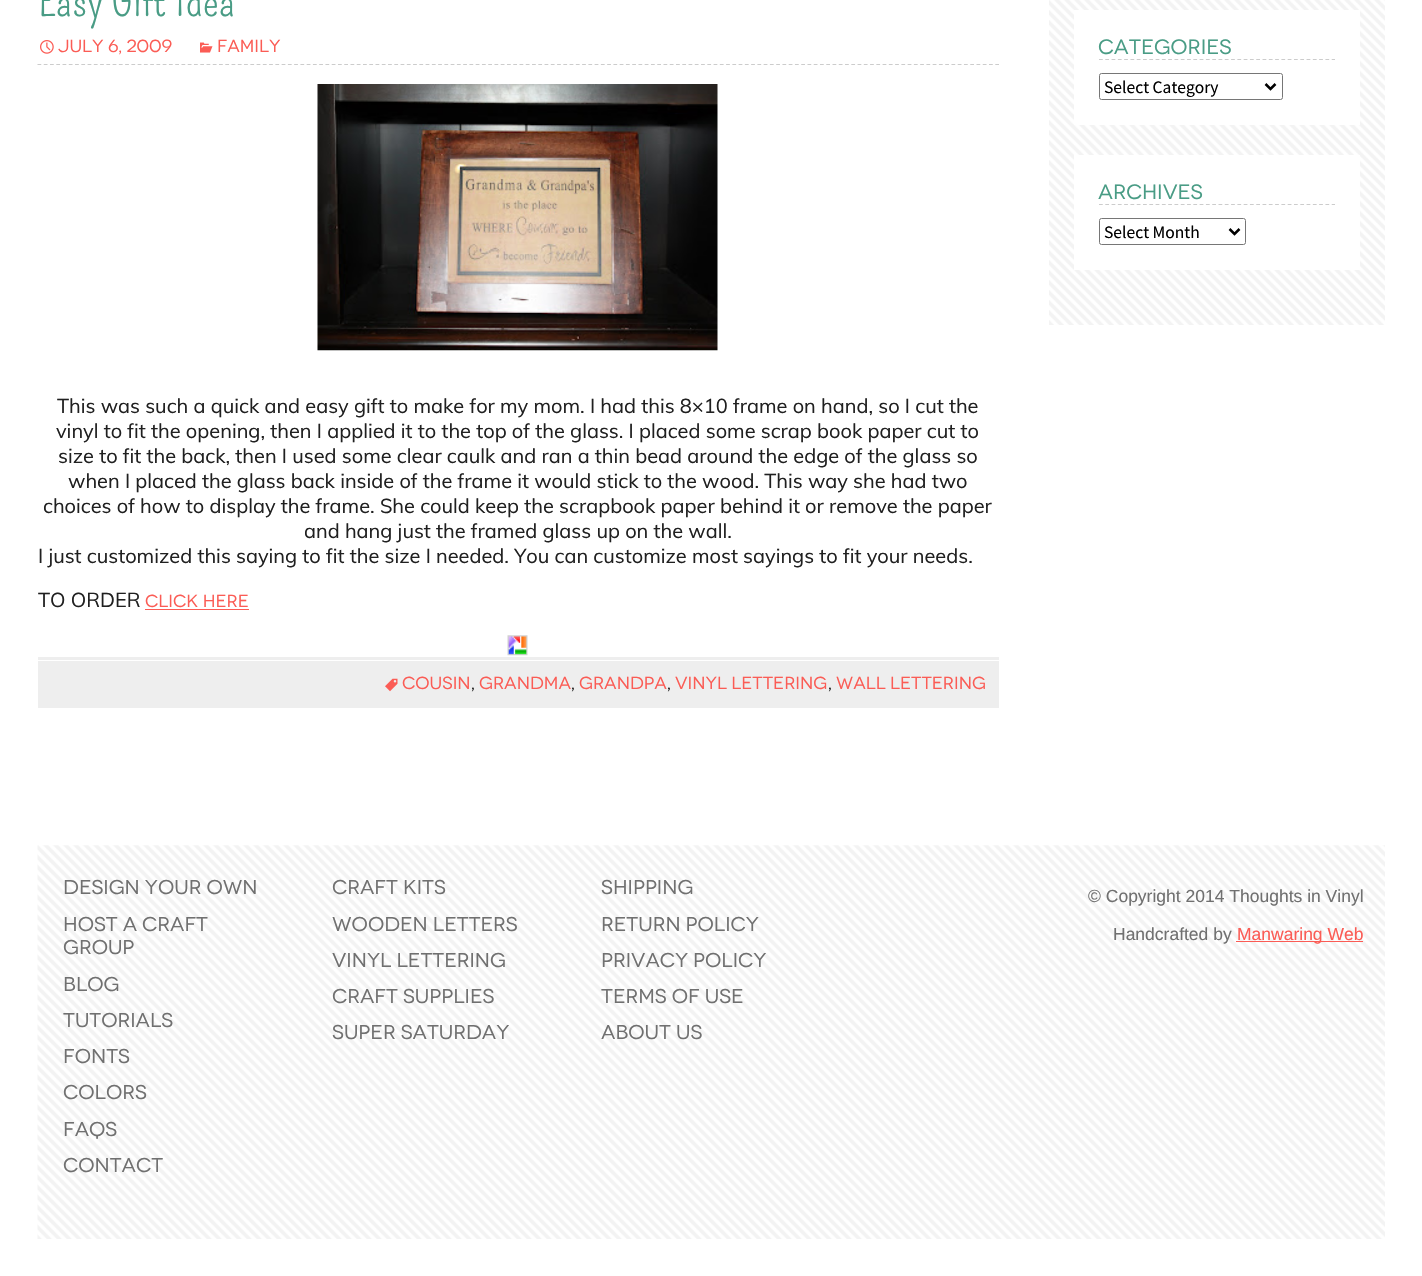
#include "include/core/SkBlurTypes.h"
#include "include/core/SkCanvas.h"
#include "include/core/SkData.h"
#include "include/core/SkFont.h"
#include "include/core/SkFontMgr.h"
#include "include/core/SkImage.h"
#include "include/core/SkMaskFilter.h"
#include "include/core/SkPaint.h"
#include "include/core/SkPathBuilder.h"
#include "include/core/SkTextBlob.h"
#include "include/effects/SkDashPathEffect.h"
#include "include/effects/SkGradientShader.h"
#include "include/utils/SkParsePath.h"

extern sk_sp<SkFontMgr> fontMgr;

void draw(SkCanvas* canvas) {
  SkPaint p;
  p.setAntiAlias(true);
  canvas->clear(SK_ColorWHITE);
  p.setStyle(SkPaint::kStroke_Style);
  p.setStrokeWidth(1.2f);
  p.setColor(SkColorSetRGB(204, 204, 204));
  p.setPathEffect(SkDashPathEffect::Make({{3.75f, 2.51f}}, 0));
  canvas->drawPath(SkPathBuilder().moveTo(37.5f, 64.5f).lineTo(999, 64.5f).detach(), p);
  p.setPathEffect(nullptr);
  canvas->drawImageRect(SkImages::DeferredFromEncodedData(SkData::MakeFromFileName("images/1.png")), SkRect::MakeLTRB(40, 40, 54, 54), SkSamplingOptions());
  canvas->drawImageRect(SkImages::DeferredFromEncodedData(SkData::MakeFromFileName("images/2.png")), SkRect::MakeLTRB(200, 42, 213, 53), SkSamplingOptions());
  canvas->drawImageRect(SkImages::DeferredFromEncodedData(SkData::MakeFromFileName("images/3.png")), SkRect::MakeLTRB(317, 84, 718, 351), SkSamplingOptions());
  p.setStyle(SkPaint::kFill_Style);
  p.setColor(SkColorSetRGB(251, 92, 85));
  canvas->drawRect(SkRect::MakeLTRB(145, 609, 249, 610), p);
  canvas->drawImageRect(SkImages::DeferredFromEncodedData(SkData::MakeFromFileName("images/4.png")), SkRect::MakeLTRB(507, 635, 528, 656), SkSamplingOptions());
  p.setColor(SkColorSetRGB(238, 238, 238));
  canvas->drawRect(SkRect::MakeLTRB(38, 657, 999, 708), p);
  p.setColor(SK_ColorWHITE);
  canvas->drawRect(SkRect::MakeLTRB(38, 660, 999, 661), p);
  canvas->drawImageRect(SkImages::DeferredFromEncodedData(SkData::MakeFromFileName("images/5.png")), SkRect::MakeLTRB(385, 678, 398, 692), SkSamplingOptions());
  canvas->drawImageRect(SkImages::DeferredFromEncodedData(SkData::MakeFromFileName("images/6.png")), SkRect::MakeLTRB(1049, 0, 1385, 325), SkSamplingOptions());
  canvas->drawRect(SkRect::MakeLTRB(1074, 10, 1360, 125), p);
  p.setStyle(SkPaint::kStroke_Style);
  p.setColor(SkColorSetRGB(204, 204, 204));
  p.setPathEffect(SkDashPathEffect::Make({{3.75f, 2.54f}}, 0));
  canvas->drawPath(SkPathBuilder().moveTo(1099, 59.5f).lineTo(1335, 59.5f).detach(), p);
  p.setPathEffect(nullptr);
  p.setStrokeWidth(1);
  p.setColor(SkColorSetRGB(118, 118, 118));
  canvas->drawRoundRect(SkRect::MakeLTRB(1099.5f, 73.5f, 1282.5f, 99.5f), 2, 2, p);
  p.setStrokeWidth(2.5f);
  p.setColor(SK_ColorBLACK);
  canvas->drawPath(SkPathBuilder().moveTo(1265.5f, 84).lineTo(1270.5f, 89).lineTo(1275.5f, 84).detach(), p);
  p.setStyle(SkPaint::kFill_Style);
  p.setColor(SK_ColorWHITE);
  canvas->drawRect(SkRect::MakeLTRB(1074, 155, 1360, 270), p);
  p.setStyle(SkPaint::kStroke_Style);
  p.setStrokeWidth(1.2f);
  p.setColor(SkColorSetRGB(204, 204, 204));
  p.setPathEffect(SkDashPathEffect::Make({{3.75f, 2.54f}}, 0));
  canvas->drawPath(SkPathBuilder().moveTo(1099, 204.5f).lineTo(1335, 204.5f).detach(), p);
  p.setPathEffect(nullptr);
  p.setStrokeWidth(1);
  p.setColor(SkColorSetRGB(118, 118, 118));
  canvas->drawRoundRect(SkRect::MakeLTRB(1099.5f, 218.5f, 1245.5f, 244.5f), 2, 2, p);
  p.setStrokeWidth(2.5f);
  p.setColor(SK_ColorBLACK);
  canvas->drawPath(SkPathBuilder().moveTo(1229.5f, 229).lineTo(1234.5f, 234).lineTo(1239.5f, 229).detach(), p);
  canvas->drawImageRect(SkImages::DeferredFromEncodedData(SkData::MakeFromFileName("images/7.png")), SkRect::MakeLTRB(37, 845, 1385, 1239), SkSamplingOptions());
  p.setStyle(SkPaint::kFill_Style);
  p.setColor(SkColorSetRGB(251, 92, 85));
  canvas->drawRect(SkRect::MakeLTRB(1236, 941, 1363, 942), p);
  SkFont font1(fontMgr->matchFamilyStyle("Pompiere", SkFontStyle::Normal()), 47.5f);
  font1.setSubpixel(true);
  p.setColor(SkColorSetRGB(73, 156, 133));
  canvas->drawString("Easy Gift Idea", 38, 16, font1, p);
  SkFont font2(fontMgr->matchFamilyStyle("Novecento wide", SkFontStyle::Normal()), 17.5f);
  font2.setSubpixel(true);
  p.setColor(SkColorSetRGB(251, 92, 85));
  canvas->drawString("July 6, 2009", 58, 52, font2, p);
  canvas->drawString("Family", 217, 52, font2, p);
  SkFont font3(fontMgr->matchFamilyStyle("Muli", SkFontStyle::Normal()), 20);
  font3.setSubpixel(true);
  p.setColor(SkColorSetRGB(32, 32, 32));
  canvas->drawString("This was such a quick and easy gift to make for my mom. I had this 8×10 frame on hand, so I cut the", 57, 413, font3, p);
  canvas->drawString("vinyl to fit the opening, then I applied it to the top of the glass. I placed some scrap book paper cut to", 56, 438, font3, p);
  canvas->drawString("size to fit the back, then I used some clear caulk and ran a thin bead around the edge of the glass so", 58, 463, font3, p);
  canvas->drawString("when I placed the glass back inside of the frame it would stick to the wood. This way she had two", 68, 488, font3, p);
  canvas->drawString("choices of how to display the frame. She could keep the scrapbook paper behind it or remove the paper", 43, 513, font3, p);
  canvas->drawString("and hang just the framed glass up on the wall.", 304, 538, font3, p);
  canvas->drawString("I just customized this saying to fit the size I needed. You can customize most sayings to fit your needs.", 38, 563, font3, p);
  canvas->drawString("TO ORDER", 38, 607, font3, p);
  p.setColor(SkColorSetRGB(251, 92, 85));
  canvas->drawString("click here", 145, 607, font2, p);
  canvas->drawString("cousin", 402, 689, font2, p);
  p.setColor(SkColorSetRGB(32, 32, 32));
  canvas->drawString(",", 471, 689, font2, p);
  p.setColor(SkColorSetRGB(251, 92, 85));
  canvas->drawString("grandma", 479, 689, font2, p);
  p.setColor(SkColorSetRGB(32, 32, 32));
  canvas->drawString(",", 571, 689, font2, p);
  p.setColor(SkColorSetRGB(251, 92, 85));
  canvas->drawString("grandpa", 579, 689, font2, p);
  p.setColor(SkColorSetRGB(32, 32, 32));
  canvas->drawString(",", 667, 689, font2, p);
  p.setColor(SkColorSetRGB(251, 92, 85));
  canvas->drawString("vinyl lettering", 675, 689, font2, p);
  p.setColor(SkColorSetRGB(32, 32, 32));
  canvas->drawString(",", 828, 689, font2, p);
  p.setColor(SkColorSetRGB(251, 92, 85));
  canvas->drawString("wall lettering", 836, 689, font2, p);
  SkFont font4(fontMgr->matchFamilyStyle("Novecento wide", SkFontStyle::Normal()), 20.75f);
  font4.setSubpixel(true);
  p.setColor(SkColorSetRGB(73, 156, 133));
  canvas->drawString("Categories", 1098, 54, font4, p);
  SkFont font5(fontMgr->matchFamilyStyle("Source Sans Pro", SkFontStyle::Normal()), 17.5f);
  font5.setSubpixel(true);
  p.setColor(SK_ColorBLACK);
  canvas->drawString("Select Category", 1104, 93, font5, p);
  p.setColor(SkColorSetRGB(73, 156, 133));
  canvas->drawString("Archives", 1098, 199, font4, p);
  p.setColor(SK_ColorBLACK);
  canvas->drawString("Select Month", 1104, 238, font5, p);
  SkFont font6(fontMgr->matchFamilyStyle("Novecento wide", SkFontStyle::Normal()), 20);
  font6.setSubpixel(true);
  p.setColor(SkColorSetRGB(112, 112, 112));
  canvas->drawString("Design Your Own", 63, 894, font6, p);
  canvas->drawString("Host a Craft", 63, 931, font6, p);
  canvas->drawString("Group", 63, 954, font6, p);
  canvas->drawString("Blog", 63, 991, font6, p);
  canvas->drawString("Tutorials", 63, 1027, font6, p);
  canvas->drawString("Fonts", 63, 1063, font6, p);
  canvas->drawString("Colors", 63, 1099, font6, p);
  canvas->drawString("FAQs", 63, 1136, font6, p);
  canvas->drawString("Contact", 63, 1172, font6, p);
  canvas->drawString("Craft Kits", 332, 894, font6, p);
  canvas->drawString("Wooden Letters", 332, 931, font6, p);
  canvas->drawString("Vinyl Lettering", 332, 967, font6, p);
  canvas->drawString("Craft Supplies", 332, 1003, font6, p);
  canvas->drawString("Super Saturday", 332, 1039, font6, p);
  canvas->drawString("Shipping", 601, 894, font6, p);
  canvas->drawString("Return Policy", 601, 931, font6, p);
  canvas->drawString("Privacy Policy", 601, 967, font6, p);
  canvas->drawString("Terms of Use", 601, 1003, font6, p);
  canvas->drawString("About Us", 601, 1039, font6, p);
  SkFont font7(fontMgr->matchFamilyStyle("Liberation Sans", SkFontStyle::Normal()), 17.5f);
  font7.setSubpixel(true);
  canvas->drawString("© Copyright 2014 Thoughts in Vinyl", 1088, 902, font7, p);
  canvas->drawString("Handcrafted by", 1113, 940, font7, p);
  p.setColor(SkColorSetRGB(251, 92, 85));
  canvas->drawString("Manwaring Web", 1237, 940, font7, p);
}
